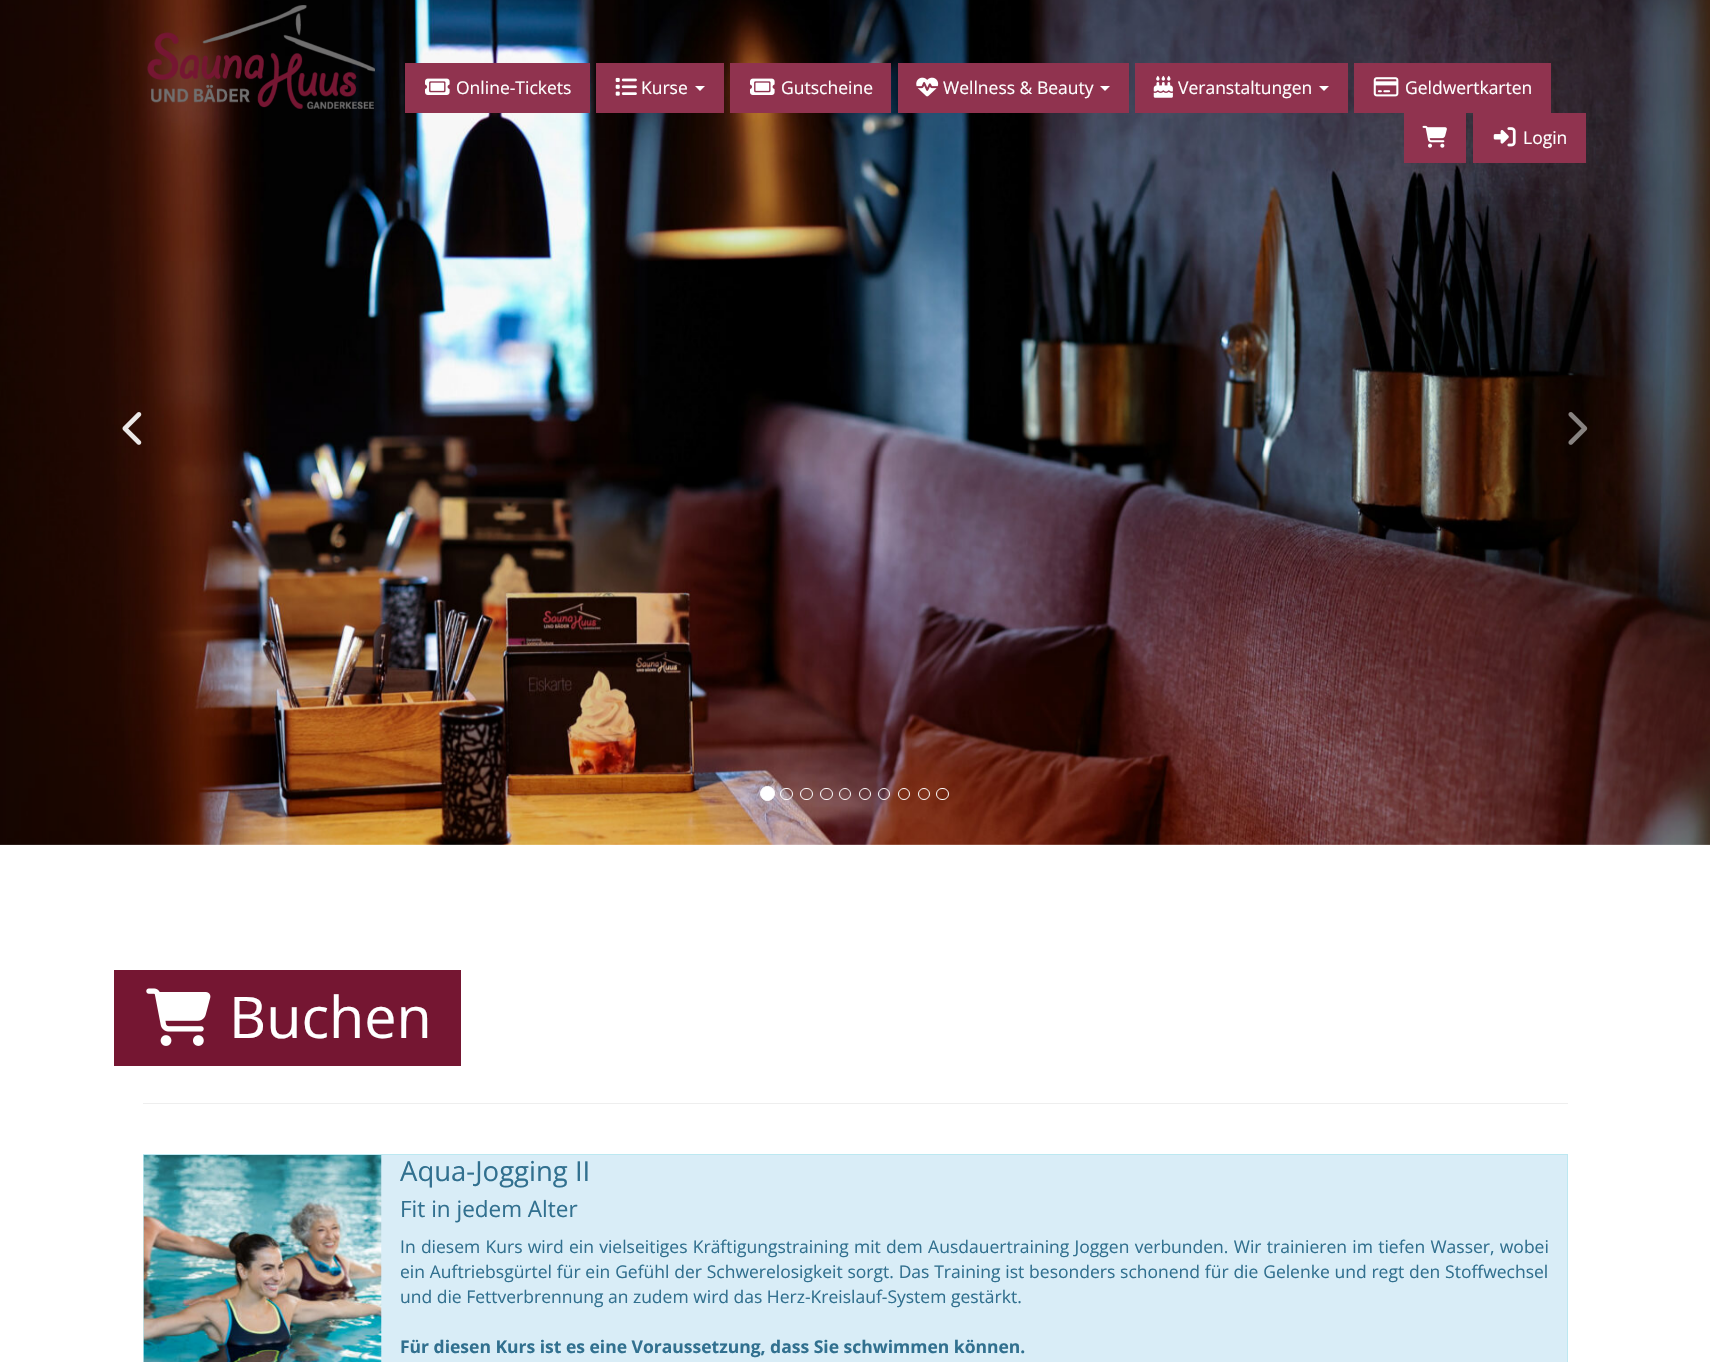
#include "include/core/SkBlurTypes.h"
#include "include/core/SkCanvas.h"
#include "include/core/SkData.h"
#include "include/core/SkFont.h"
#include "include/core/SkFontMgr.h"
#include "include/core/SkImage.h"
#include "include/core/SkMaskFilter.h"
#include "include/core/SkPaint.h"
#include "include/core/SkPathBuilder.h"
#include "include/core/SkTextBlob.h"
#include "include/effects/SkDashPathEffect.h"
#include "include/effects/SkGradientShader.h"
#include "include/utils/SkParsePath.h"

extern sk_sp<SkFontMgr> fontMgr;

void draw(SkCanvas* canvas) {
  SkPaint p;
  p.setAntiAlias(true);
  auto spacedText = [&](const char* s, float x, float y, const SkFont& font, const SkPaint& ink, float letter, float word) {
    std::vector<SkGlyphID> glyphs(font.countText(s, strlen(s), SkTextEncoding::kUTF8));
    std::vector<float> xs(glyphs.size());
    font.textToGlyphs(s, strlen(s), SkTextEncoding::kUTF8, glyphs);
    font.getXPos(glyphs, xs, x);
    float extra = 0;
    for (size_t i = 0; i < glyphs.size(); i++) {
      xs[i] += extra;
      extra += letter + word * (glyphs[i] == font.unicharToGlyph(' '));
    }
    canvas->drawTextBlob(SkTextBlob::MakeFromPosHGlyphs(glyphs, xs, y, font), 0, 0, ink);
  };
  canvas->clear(SK_ColorWHITE);
  canvas->drawImageRect(SkImages::DeferredFromEncodedData(SkData::MakeFromFileName("images/1.png")), SkRect::MakeLTRB(0, 0, 1710, 845), SkSamplingOptions());
  {
    const SkColor colors[] = {SkColorSetARGB(115, 0, 0, 0), SkColorSetARGB(0, 0, 0, 0)};
    const float stops[] = {0, 1};
    const SkPoint ends[] = {{0, 423}, {256, 423}};
    p.setShader(SkGradientShader::MakeLinear(ends, colors, stops, 2, SkTileMode::kClamp));
    p.setAlpha(255);
  }
  canvas->drawRect(SkRect::MakeLTRB(0, 0, 244, 845), p);
  canvas->drawImageRect(SkImages::DeferredFromEncodedData(SkData::MakeFromFileName("images/2.png")), SkRect::MakeLTRB(122, 412, 142, 445), SkSamplingOptions());
  p.setShader(nullptr);
  p.setColor(SK_ColorWHITE);
  canvas->drawCircle(767.5f, 793.5f, 7, p);
  p.setStyle(SkPaint::kStroke_Style);
  p.setStrokeWidth(1);
  canvas->drawCircle(767.5f, 793.5f, 7, p);
  canvas->drawRoundRect(SkRect::MakeLTRB(780.5f, 788.5f, 792.5f, 799.5f), 5.5f, 5.5f, p);
  canvas->drawRoundRect(SkRect::MakeLTRB(800.5f, 788.5f, 812.5f, 799.5f), 5.5f, 5.5f, p);
  canvas->drawRoundRect(SkRect::MakeLTRB(820.5f, 788.5f, 832.5f, 799.5f), 5.5f, 5.5f, p);
  canvas->drawCircle(845, 794, 5.5f, p);
  canvas->drawCircle(865, 794, 5.5f, p);
  canvas->drawCircle(884, 794, 5.5f, p);
  canvas->drawCircle(904, 794, 5.5f, p);
  canvas->drawCircle(924, 794, 5.5f, p);
  canvas->drawRoundRect(SkRect::MakeLTRB(936.5f, 788.5f, 948.5f, 799.5f), 5.5f, 5.5f, p);
  p.setStyle(SkPaint::kFill_Style);
  {
    const SkColor colors[] = {SkColorSetARGB(0, 0, 0, 0), SkColorSetARGB(64, 0, 0, 0)};
    const float stops[] = {0, 1};
    const SkPoint ends[] = {{1454, 423}, {1710, 423}};
    p.setShader(SkGradientShader::MakeLinear(ends, colors, stops, 2, SkTileMode::kClamp));
    p.setAlpha(255);
  }
  canvas->drawRect(SkRect::MakeLTRB(1476, 0, 1710, 845), p);
  canvas->drawImageRect(SkImages::DeferredFromEncodedData(SkData::MakeFromFileName("images/3.png")), SkRect::MakeLTRB(1568, 412, 1588, 445), SkSamplingOptions());
  canvas->drawImageRect(SkImages::DeferredFromEncodedData(SkData::MakeFromFileName("images/4.png")), SkRect::MakeLTRB(147, 5, 375, 109), SkSamplingOptions());
  p.setShader(nullptr);
  p.setColor(SkColorSetRGB(144, 51, 79));
  canvas->drawRect(SkRect::MakeLTRB(405, 63, 590, 113), p);
  canvas->drawImageRect(SkImages::DeferredFromEncodedData(SkData::MakeFromFileName("images/5.png")), SkRect::MakeLTRB(425, 78, 450, 95), SkSamplingOptions());
  canvas->drawRect(SkRect::MakeLTRB(596, 63, 724, 113), p);
  canvas->drawImageRect(SkImages::DeferredFromEncodedData(SkData::MakeFromFileName("images/6.png")), SkRect::MakeLTRB(615, 77, 637, 96), SkSamplingOptions());
  p.setColor(SK_ColorWHITE);
  canvas->drawPath(SkPathBuilder().moveTo(695, 86).lineTo(705, 86).lineTo(700, 91).close().detach(), p);
  p.setColor(SkColorSetRGB(144, 51, 79));
  canvas->drawRect(SkRect::MakeLTRB(730, 63, 891, 113), p);
  canvas->drawImageRect(SkImages::DeferredFromEncodedData(SkData::MakeFromFileName("images/5.png")), SkRect::MakeLTRB(750, 78, 775, 95), SkSamplingOptions());
  canvas->drawRect(SkRect::MakeLTRB(898, 63, 1129, 113), p);
  canvas->drawImageRect(SkImages::DeferredFromEncodedData(SkData::MakeFromFileName("images/7.png")), SkRect::MakeLTRB(916, 77, 939, 97), SkSamplingOptions());
  p.setColor(SK_ColorWHITE);
  canvas->drawPath(SkPathBuilder().moveTo(1100, 86).lineTo(1110, 86).lineTo(1105, 91).close().detach(), p);
  p.setColor(SkColorSetRGB(144, 51, 79));
  canvas->drawRect(SkRect::MakeLTRB(1135, 63, 1348, 113), p);
  canvas->drawImageRect(SkImages::DeferredFromEncodedData(SkData::MakeFromFileName("images/8.png")), SkRect::MakeLTRB(1153, 75, 1173, 98), SkSamplingOptions());
  p.setColor(SK_ColorWHITE);
  canvas->drawPath(SkPathBuilder().moveTo(1319, 86).lineTo(1329, 86).lineTo(1324, 91).close().detach(), p);
  p.setColor(SkColorSetRGB(144, 51, 79));
  canvas->drawRect(SkRect::MakeLTRB(1354, 63, 1551, 113), p);
  canvas->drawImageRect(SkImages::DeferredFromEncodedData(SkData::MakeFromFileName("images/9.png")), SkRect::MakeLTRB(1373, 77, 1399, 97), SkSamplingOptions());
  canvas->drawRect(SkRect::MakeLTRB(1404, 113, 1466, 163), p);
  canvas->drawImageRect(SkImages::DeferredFromEncodedData(SkData::MakeFromFileName("images/10.png")), SkRect::MakeLTRB(1422, 125, 1447, 148), SkSamplingOptions());
  canvas->drawRect(SkRect::MakeLTRB(1473, 113, 1586, 163), p);
  canvas->drawImageRect(SkImages::DeferredFromEncodedData(SkData::MakeFromFileName("images/11.png")), SkRect::MakeLTRB(1493, 127, 1516, 147), SkSamplingOptions());
  p.setColor(SkColorSetRGB(238, 238, 238));
  canvas->drawRect(SkRect::MakeLTRB(143, 1103, 1568, 1104), p);
  p.setColor(SkColorSetRGB(117, 22, 50));
  canvas->drawRect(SkRect::MakeLTRB(114, 970, 461, 1066), p);
  canvas->drawImageRect(SkImages::DeferredFromEncodedData(SkData::MakeFromFileName("images/12.png")), SkRect::MakeLTRB(146, 988, 211, 1046), SkSamplingOptions());
  p.setColor(SkColorSetRGB(217, 237, 247));
  canvas->drawRect(SkRect::MakeLTRB(381, 1155, 1567, 1362), p);
  p.setStyle(SkPaint::kStroke_Style);
  p.setColor(SkColorSetRGB(188, 232, 241));
  canvas->drawRect(SkRect::MakeLTRB(143.5f, 1154.5f, 1567.5f, 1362.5f), p);
  canvas->drawImageRect(SkImages::DeferredFromEncodedData(SkData::MakeFromFileName("images/13.png")), SkRect::MakeLTRB(143, 1155, 382, 1362), SkSamplingOptions());
  SkFont font1(fontMgr->matchFamilyStyle("Open Sans", SkFontStyle::Normal()), 17.5f);
  font1.setSubpixel(true);
  p.setStyle(SkPaint::kFill_Style);
  p.setColor(SK_ColorWHITE);
  canvas->drawString("Online-Tickets", 456, 94, font1, p);
  canvas->drawString("Kurse", 641, 94, font1, p);
  canvas->drawString("Gutscheine", 781, 94, font1, p);
  canvas->drawString("Wellness & Beauty", 943, 94, font1, p);
  canvas->drawString("Veranstaltungen", 1178, 94, font1, p);
  canvas->drawString("Geldwertkarten", 1405, 94, font1, p);
  canvas->drawString("Login", 1523, 144, font1, p);
  SkFont font2(fontMgr->matchFamilyStyle("Open Sans", SkFontStyle::Normal()), 57.5f);
  font2.setSubpixel(true);
  canvas->drawString("Buchen", 229, 1038, font2, p);
  SkFont font3(fontMgr->matchFamilyStyle("Open Sans", SkFontStyle::Normal()), 27.5f);
  font3.setSubpixel(true);
  p.setColor(SkColorSetRGB(49, 112, 143));
  canvas->drawString("Aqua-Jogging II", 400, 1181, font3, p);
  SkFont font4(fontMgr->matchFamilyStyle("Open Sans", SkFontStyle::Normal()), 22.5f);
  font4.setSubpixel(true);
  canvas->drawString("Fit in jedem Alter", 400, 1217, font4, p);
  spacedText("In diesem Kurs wird ein vielseitiges Kräftigungstraining mit dem Ausdauertraining Joggen verbunden. Wir trainieren im tiefen Wasser, wobei", 400, 1253, font1, p, 0, 0.75f);
  spacedText("ein Auftriebsgürtel für ein Gefühl der Schwerelosigkeit sorgt. Das Training ist besonders schonend für die Gelenke und regt den Stoffwechsel", 400, 1278, font1, p, 0, 0.25f);
  canvas->drawString("und die Fettverbrennung an zudem wird das Herz-Kreislauf-System gestärkt.", 400, 1303, font1, p);
  SkFont font5(fontMgr->matchFamilyStyle("Open Sans", SkFontStyle::Bold()), 17.5f);
  font5.setSubpixel(true);
  canvas->drawString("Für diesen Kurs ist es eine Voraussetzung, dass Sie schwimmen können.", 400, 1353, font5, p);
}
